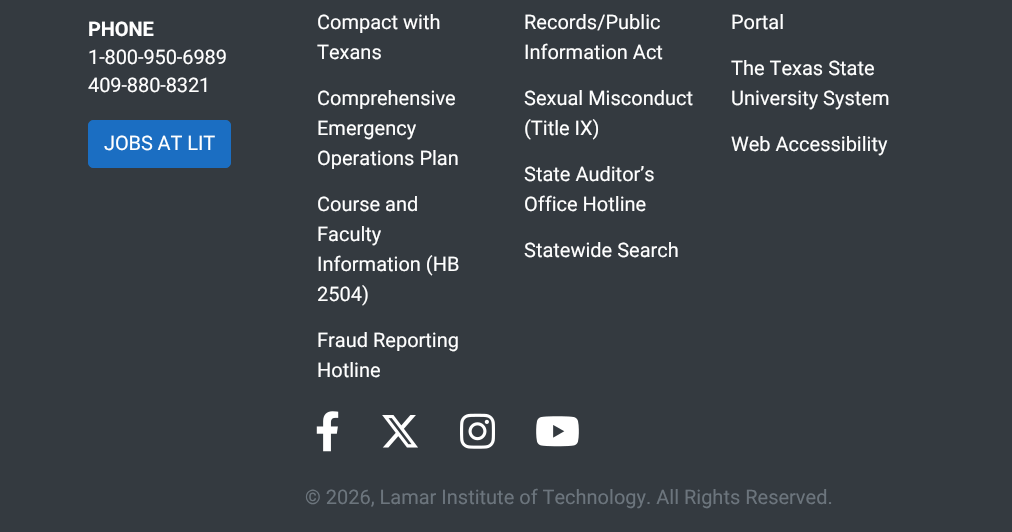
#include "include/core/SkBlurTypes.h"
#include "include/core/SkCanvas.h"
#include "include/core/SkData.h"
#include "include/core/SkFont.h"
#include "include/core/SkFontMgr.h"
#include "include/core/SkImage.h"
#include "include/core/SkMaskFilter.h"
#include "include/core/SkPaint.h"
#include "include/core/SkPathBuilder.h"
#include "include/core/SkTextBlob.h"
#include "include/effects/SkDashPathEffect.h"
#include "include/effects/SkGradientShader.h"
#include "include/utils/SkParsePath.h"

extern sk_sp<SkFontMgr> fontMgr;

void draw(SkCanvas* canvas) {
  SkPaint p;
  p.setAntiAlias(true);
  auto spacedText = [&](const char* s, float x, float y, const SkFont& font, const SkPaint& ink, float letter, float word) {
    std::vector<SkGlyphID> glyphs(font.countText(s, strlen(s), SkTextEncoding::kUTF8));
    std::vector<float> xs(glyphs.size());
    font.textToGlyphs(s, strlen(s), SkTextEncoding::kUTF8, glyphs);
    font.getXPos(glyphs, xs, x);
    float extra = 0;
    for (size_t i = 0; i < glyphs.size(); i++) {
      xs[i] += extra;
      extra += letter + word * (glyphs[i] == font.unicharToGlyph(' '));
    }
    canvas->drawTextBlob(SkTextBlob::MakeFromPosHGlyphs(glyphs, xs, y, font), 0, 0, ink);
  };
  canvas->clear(SkColorSetRGB(52, 58, 64));
  p.setColor(SkColorSetRGB(27, 110, 194));
  canvas->drawRoundRect(SkRect::MakeLTRB(88.5f, 120.5f, 230.5f, 167.5f), 4.5f, 4.5f, p);
  p.setStyle(SkPaint::kStroke_Style);
  p.setStrokeWidth(1);
  canvas->drawRoundRect(SkRect::MakeLTRB(88.5f, 120.5f, 230.5f, 167.5f), 4.5f, 4.5f, p);
  canvas->drawImageRect(SkImages::DeferredFromEncodedData(SkData::MakeFromFileName("images/1.png")), SkRect::MakeLTRB(316, 411, 339, 452), SkSamplingOptions());
  canvas->drawImageRect(SkImages::DeferredFromEncodedData(SkData::MakeFromFileName("images/2.png")), SkRect::MakeLTRB(382, 415, 418, 448), SkSamplingOptions());
  canvas->drawImageRect(SkImages::DeferredFromEncodedData(SkData::MakeFromFileName("images/3.png")), SkRect::MakeLTRB(460, 413, 495, 449), SkSamplingOptions());
  canvas->drawImageRect(SkImages::DeferredFromEncodedData(SkData::MakeFromFileName("images/4.png")), SkRect::MakeLTRB(536, 416, 579, 447), SkSamplingOptions());
  SkFont font1(fontMgr->matchFamilyStyle("Roboto", SkFontStyle::Bold()), 20);
  font1.setSubpixel(true);
  p.setStyle(SkPaint::kFill_Style);
  p.setColor(SK_ColorWHITE);
  spacedText("PHONE", 88, 36, font1, p, -0.1f, 0);
  SkFont font2(fontMgr->matchFamilyStyle("Roboto", SkFontStyle::Normal()), 20);
  font2.setSubpixel(true);
  spacedText("1-800-950-6989", 88, 64, font2, p, -0.1f, 0);
  spacedText("409-880-8321", 88, 92, font2, p, -0.1f, 0);
  spacedText("JOBS AT LIT", 104, 150, font2, p, -0.1f, 0);
  canvas->drawString("Compact with", 317, 29, font2, p);
  canvas->drawString("Texans", 317, 59, font2, p);
  canvas->drawString("Comprehensive", 317, 105, font2, p);
  canvas->drawString("Emergency", 317, 135, font2, p);
  canvas->drawString("Operations Plan", 317, 165, font2, p);
  canvas->drawString("Course and", 317, 211, font2, p);
  canvas->drawString("Faculty", 317, 241, font2, p);
  canvas->drawString("Information (HB", 317, 271, font2, p);
  canvas->drawString("2504)", 317, 301, font2, p);
  canvas->drawString("Fraud Reporting", 317, 347, font2, p);
  canvas->drawString("Hotline", 317, 377, font2, p);
  canvas->drawString("Records/Public", 524, 29, font2, p);
  canvas->drawString("Information Act", 524, 59, font2, p);
  canvas->drawString("Sexual Misconduct", 524, 105, font2, p);
  canvas->drawString("(Title IX)", 524, 135, font2, p);
  canvas->drawString("State Auditor’s", 524, 181, font2, p);
  canvas->drawString("Office Hotline", 524, 211, font2, p);
  canvas->drawString("Statewide Search", 524, 257, font2, p);
  canvas->drawString("Portal", 731, 29, font2, p);
  canvas->drawString("The Texas State", 731, 75, font2, p);
  canvas->drawString("University System", 731, 105, font2, p);
  canvas->drawString("Web Accessibility", 731, 151, font2, p);
  p.setColor(SkColorSetRGB(108, 117, 125));
  canvas->drawString("© 2026, Lamar Institute of Technology. All Rights Reserved.", 305, 504, font2, p);
}
